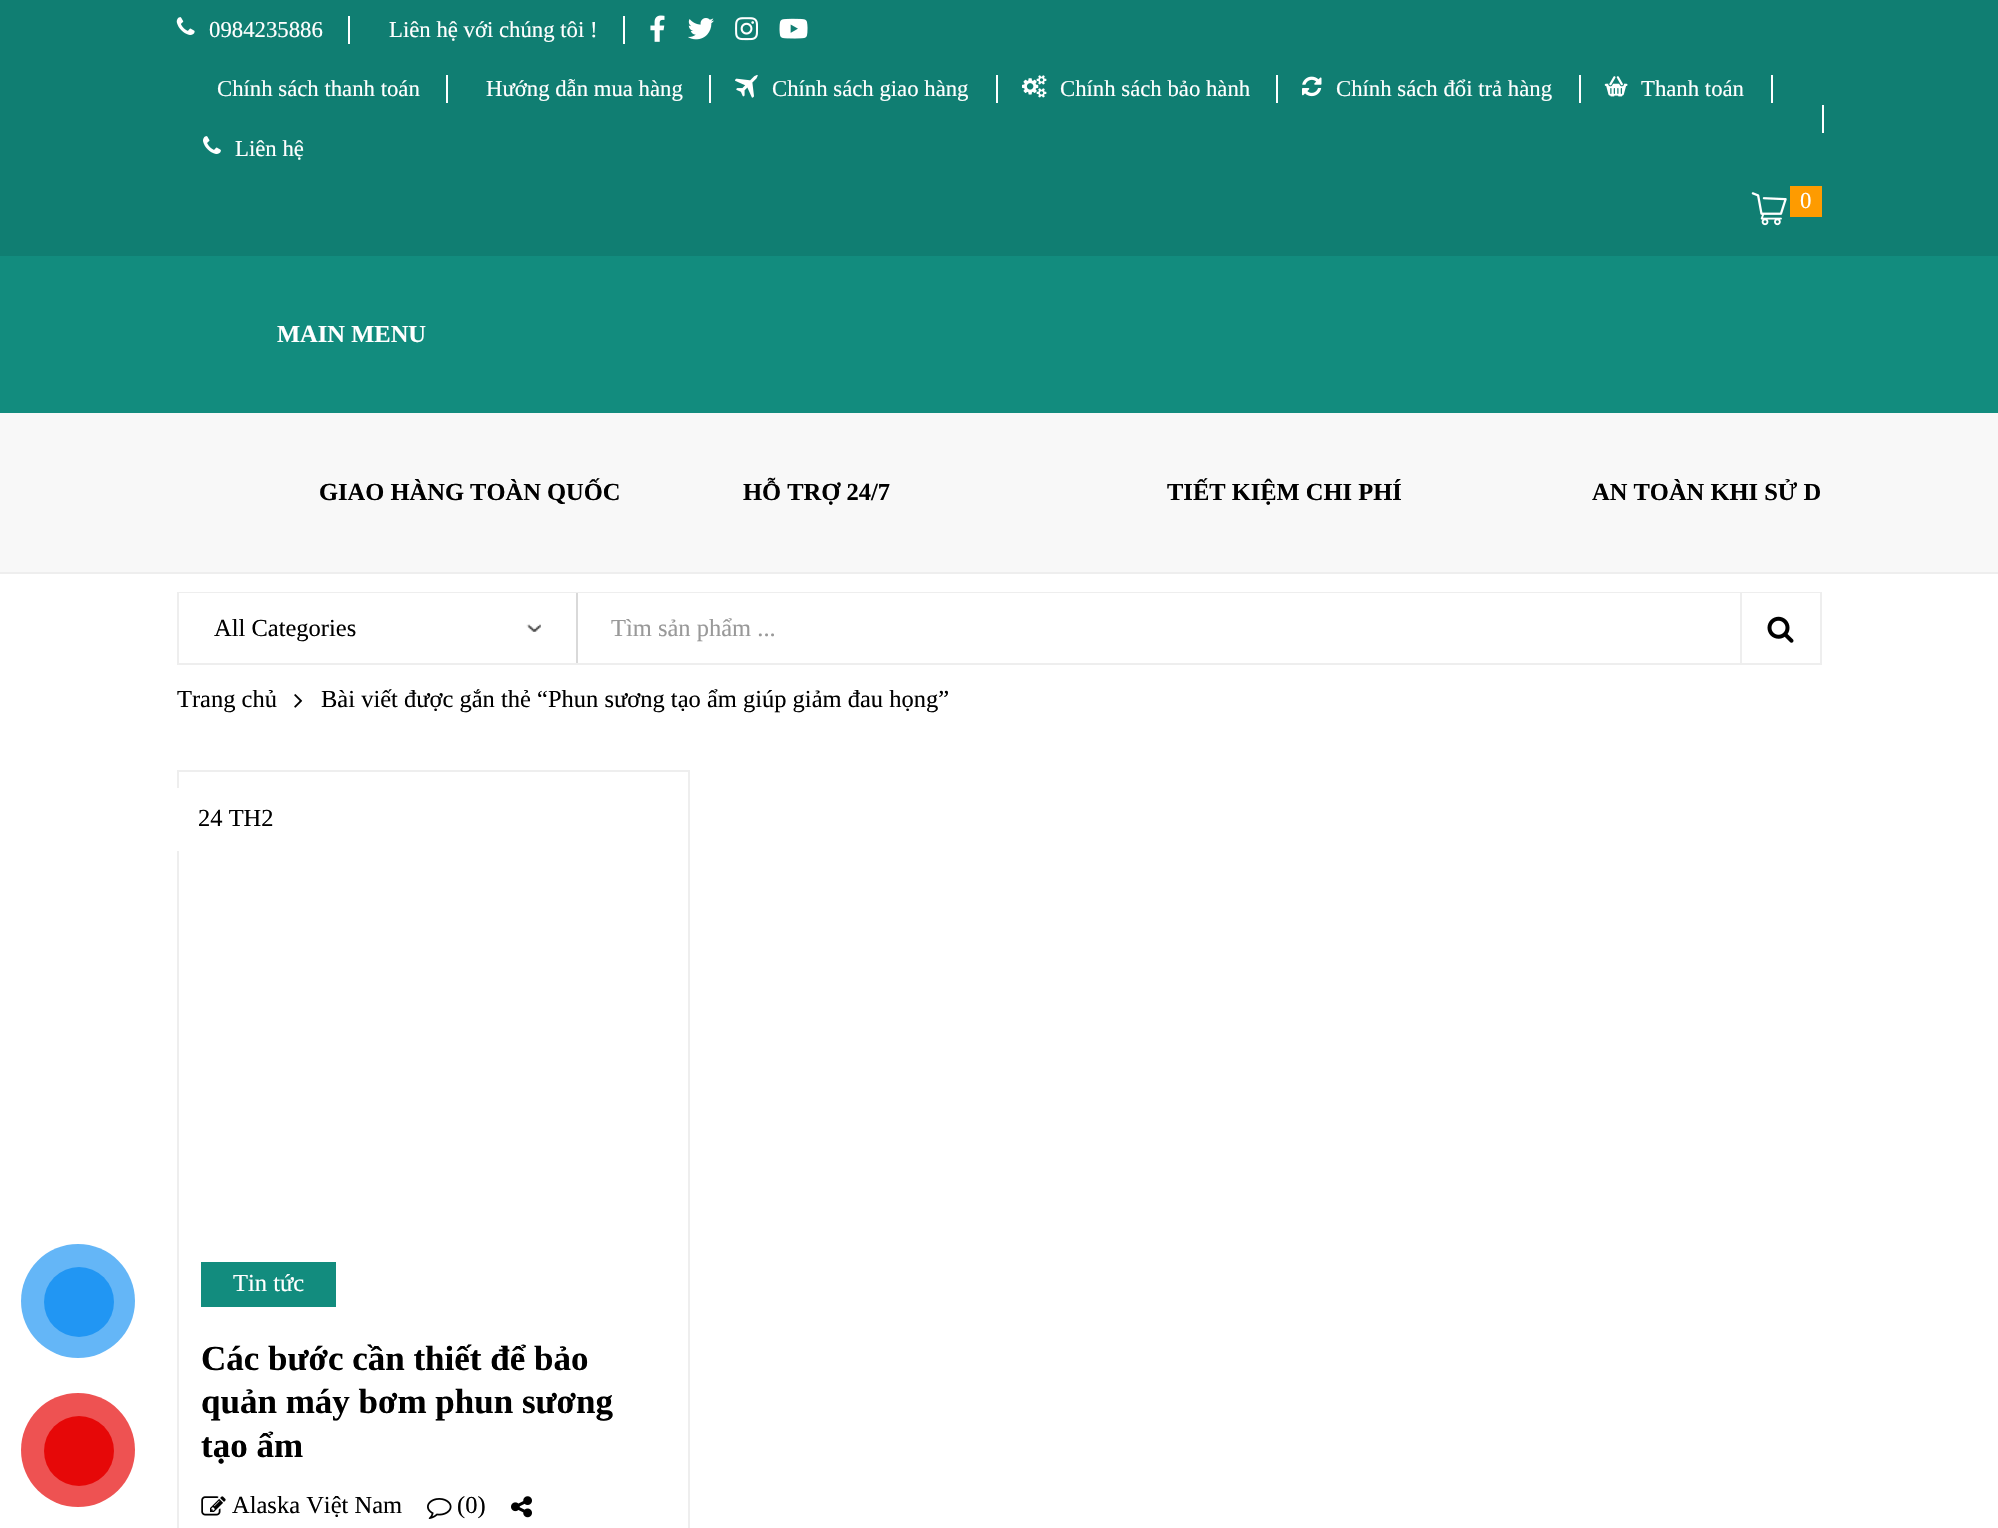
#include "include/core/SkBlurTypes.h"
#include "include/core/SkCanvas.h"
#include "include/core/SkData.h"
#include "include/core/SkFont.h"
#include "include/core/SkFontMgr.h"
#include "include/core/SkImage.h"
#include "include/core/SkMaskFilter.h"
#include "include/core/SkPaint.h"
#include "include/core/SkPathBuilder.h"
#include "include/core/SkTextBlob.h"
#include "include/effects/SkDashPathEffect.h"
#include "include/effects/SkGradientShader.h"
#include "include/utils/SkParsePath.h"

extern sk_sp<SkFontMgr> fontMgr;

void draw(SkCanvas* canvas) {
  SkPaint p;
  p.setAntiAlias(true);
  canvas->clear(SK_ColorWHITE);
  p.setColor(SkColorSetRGB(100, 182, 247));
  canvas->drawCircle(78, 1301, 57, p);
  p.setColor(SkColorSetRGB(33, 150, 243));
  canvas->drawCircle(79, 1302, 35, p);
  p.setColor(SkColorSetRGB(238, 82, 82));
  canvas->drawCircle(78, 1450, 57, p);
  p.setColor(SkColorSetRGB(230, 8, 8));
  canvas->drawCircle(79, 1451, 35, p);
  p.setColor(SkColorSetRGB(16, 126, 114));
  canvas->drawRect(SkRect::MakeLTRB(0, 0, 1998, 256), p);
  canvas->drawImageRect(SkImages::DeferredFromEncodedData(SkData::MakeFromFileName("images/1.png")), SkRect::MakeLTRB(176, 17, 195, 35), SkSamplingOptions());
  p.setColor(SK_ColorWHITE);
  canvas->drawRect(SkRect::MakeLTRB(348, 16, 350, 44), p);
  canvas->drawRect(SkRect::MakeLTRB(623, 16, 625, 44), p);
  canvas->drawImageRect(SkImages::DeferredFromEncodedData(SkData::MakeFromFileName("images/2.png")), SkRect::MakeLTRB(650, 15, 665, 42), SkSamplingOptions());
  canvas->drawImageRect(SkImages::DeferredFromEncodedData(SkData::MakeFromFileName("images/3.png")), SkRect::MakeLTRB(688, 18, 714, 40), SkSamplingOptions());
  canvas->drawImageRect(SkImages::DeferredFromEncodedData(SkData::MakeFromFileName("images/4.png")), SkRect::MakeLTRB(735, 17, 758, 41), SkSamplingOptions());
  canvas->drawImageRect(SkImages::DeferredFromEncodedData(SkData::MakeFromFileName("images/5.png")), SkRect::MakeLTRB(779, 18, 808, 39), SkSamplingOptions());
  canvas->drawRect(SkRect::MakeLTRB(446, 75, 448, 103), p);
  canvas->drawRect(SkRect::MakeLTRB(709, 75, 711, 103), p);
  canvas->drawImageRect(SkImages::DeferredFromEncodedData(SkData::MakeFromFileName("images/6.png")), SkRect::MakeLTRB(735, 74, 758, 98), SkSamplingOptions());
  canvas->drawRect(SkRect::MakeLTRB(996, 75, 998, 103), p);
  canvas->drawImageRect(SkImages::DeferredFromEncodedData(SkData::MakeFromFileName("images/7.png")), SkRect::MakeLTRB(1022, 75, 1047, 98), SkSamplingOptions());
  canvas->drawRect(SkRect::MakeLTRB(1276, 75, 1278, 103), p);
  canvas->drawImageRect(SkImages::DeferredFromEncodedData(SkData::MakeFromFileName("images/8.png")), SkRect::MakeLTRB(1302, 76, 1322, 97), SkSamplingOptions());
  canvas->drawRect(SkRect::MakeLTRB(1579, 75, 1581, 103), p);
  canvas->drawImageRect(SkImages::DeferredFromEncodedData(SkData::MakeFromFileName("images/9.png")), SkRect::MakeLTRB(1604, 76, 1628, 97), SkSamplingOptions());
  canvas->drawRect(SkRect::MakeLTRB(1771, 75, 1773, 103), p);
  canvas->drawImageRect(SkImages::DeferredFromEncodedData(SkData::MakeFromFileName("images/10.png")), SkRect::MakeLTRB(203, 136, 221, 154), SkSamplingOptions());
  canvas->drawRect(SkRect::MakeLTRB(1822, 105, 1824, 133), p);
  canvas->drawImageRect(SkImages::DeferredFromEncodedData(SkData::MakeFromFileName("images/11.png")), SkRect::MakeLTRB(1751, 192, 1787, 226), SkSamplingOptions());
  p.setColor(SkColorSetRGB(254, 155, 0));
  canvas->drawRect(SkRect::MakeLTRB(1790, 186, 1822, 217), p);
  p.setColor(SkColorSetRGB(18, 140, 126));
  canvas->drawRect(SkRect::MakeLTRB(0, 256, 1998, 413), p);
  p.setColor(SkColorSetRGB(248, 248, 248));
  canvas->drawRect(SkRect::MakeLTRB(0, 413, 1998, 572), p);
  p.setColor(SkColorSetRGB(238, 238, 238));
  canvas->drawRect(SkRect::MakeLTRB(0, 572, 1998, 574), p);
  p.setStyle(SkPaint::kStroke_Style);
  p.setStrokeWidth(2);
  canvas->drawRect(SkRect::MakeLTRB(178, 593, 1821, 664), p);
  p.setStyle(SkPaint::kFill_Style);
  p.setColor(SK_ColorWHITE);
  canvas->drawRect(SkRect::MakeLTRB(179, 593, 1820, 594), p);
  canvas->drawImageRect(SkImages::DeferredFromEncodedData(SkData::MakeFromFileName("images/12.png")), SkRect::MakeLTRB(526, 624, 541, 632), SkSamplingOptions());
  p.setColor(SkColorSetRGB(217, 217, 217));
  canvas->drawRect(SkRect::MakeLTRB(576, 593, 578, 663), p);
  p.setColor(SkColorSetRGB(238, 238, 238));
  canvas->drawRect(SkRect::MakeLTRB(1740, 593, 1742, 663), p);
  canvas->drawImageRect(SkImages::DeferredFromEncodedData(SkData::MakeFromFileName("images/13.png")), SkRect::MakeLTRB(1767, 616, 1794, 643), SkSamplingOptions());
  canvas->drawImageRect(SkImages::DeferredFromEncodedData(SkData::MakeFromFileName("images/14.png")), SkRect::MakeLTRB(294, 694, 303, 708), SkSamplingOptions());
  p.setStyle(SkPaint::kStroke_Style);
  canvas->drawRect(SkRect::MakeLTRB(178, 771, 689, 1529), p);
  p.setStyle(SkPaint::kFill_Style);
  p.setColor(SK_ColorWHITE);
  canvas->drawRect(SkRect::MakeLTRB(177, 788, 179, 851), p);
  p.setColor(SkColorSetRGB(18, 140, 126));
  canvas->drawRect(SkRect::MakeLTRB(201, 1262, 336, 1307), p);
  canvas->drawImageRect(SkImages::DeferredFromEncodedData(SkData::MakeFromFileName("images/15.png")), SkRect::MakeLTRB(201, 1496, 226, 1516), SkSamplingOptions());
  canvas->drawImageRect(SkImages::DeferredFromEncodedData(SkData::MakeFromFileName("images/16.png")), SkRect::MakeLTRB(427, 1498, 452, 1519), SkSamplingOptions());
  canvas->drawImageRect(SkImages::DeferredFromEncodedData(SkData::MakeFromFileName("images/17.png")), SkRect::MakeLTRB(511, 1496, 532, 1518), SkSamplingOptions());
  SkFont font1(fontMgr->matchFamilyStyle("Liberation Serif", SkFontStyle::Normal()), 22.75f);
  font1.setSubpixel(true);
  p.setColor(SK_ColorWHITE);
  canvas->drawString("0984235886", 209, 37, font1, p);
  canvas->drawString("Liên hệ với chúng tôi !", 389, 37, font1, p);
  canvas->drawString("Chính sách thanh toán", 217, 96, font1, p);
  canvas->drawString("Hướng dẫn mua hàng", 486, 96, font1, p);
  canvas->drawString("Chính sách giao hàng", 772, 96, font1, p);
  canvas->drawString("Chính sách bảo hành", 1060, 96, font1, p);
  canvas->drawString("Chính sách đổi trả hàng", 1336, 96, font1, p);
  canvas->drawString("Thanh toán", 1641, 96, font1, p);
  canvas->drawString("Liên hệ", 235, 156, font1, p);
  canvas->drawString("0", 1800, 208, font1, p);
  SkFont font2(fontMgr->matchFamilyStyle("Liberation Serif", SkFontStyle::Bold()), 24.5f);
  font2.setSubpixel(true);
  canvas->drawString("MAIN MENU", 277, 342, font2, p);
  p.setColor(SK_ColorBLACK);
  canvas->drawString("GIAO HÀNG TOÀN QUỐC", 319, 500, font2, p);
  canvas->drawString("HỖ TRỢ 24/7", 743, 500, font2, p);
  canvas->drawString("TIẾT KIỆM CHI PHÍ", 1167, 500, font2, p);
  canvas->drawString("AN TOÀN KHI SỬ D", 1592, 500, font2, p);
  SkFont font3(fontMgr->matchFamilyStyle("Liberation Serif", SkFontStyle::Normal()), 24.5f);
  font3.setSubpixel(true);
  canvas->drawString("All Categories", 214, 636, font3, p);
  p.setColor(SkColorSetRGB(153, 153, 153));
  canvas->drawString("Tìm sản phẩm ...", 611, 636, font3, p);
  p.setColor(SK_ColorBLACK);
  canvas->drawString("Trang chủ", 177, 707, font3, p);
  canvas->drawString("Bài viết được gắn thẻ “Phun sương tạo ẩm giúp giảm đau họng”", 321, 707, font3, p);
  canvas->drawString("24 TH2", 198, 826, font3, p);
  p.setColor(SK_ColorWHITE);
  canvas->drawString("Tin tức", 233, 1291, font3, p);
  SkFont font4(fontMgr->matchFamilyStyle("Liberation Serif", SkFontStyle::Bold()), 35);
  font4.setSubpixel(true);
  p.setColor(SK_ColorBLACK);
  canvas->drawString("Các bước cần thiết để bảo", 201, 1370, font4, p);
  canvas->drawString("quản máy bơm phun sương", 201, 1413, font4, p);
  canvas->drawString("tạo ẩm", 201, 1457, font4, p);
  canvas->drawString("Alaska Việt Nam", 232, 1513, font3, p);
  canvas->drawString("(0)", 457, 1513, font3, p);
}
